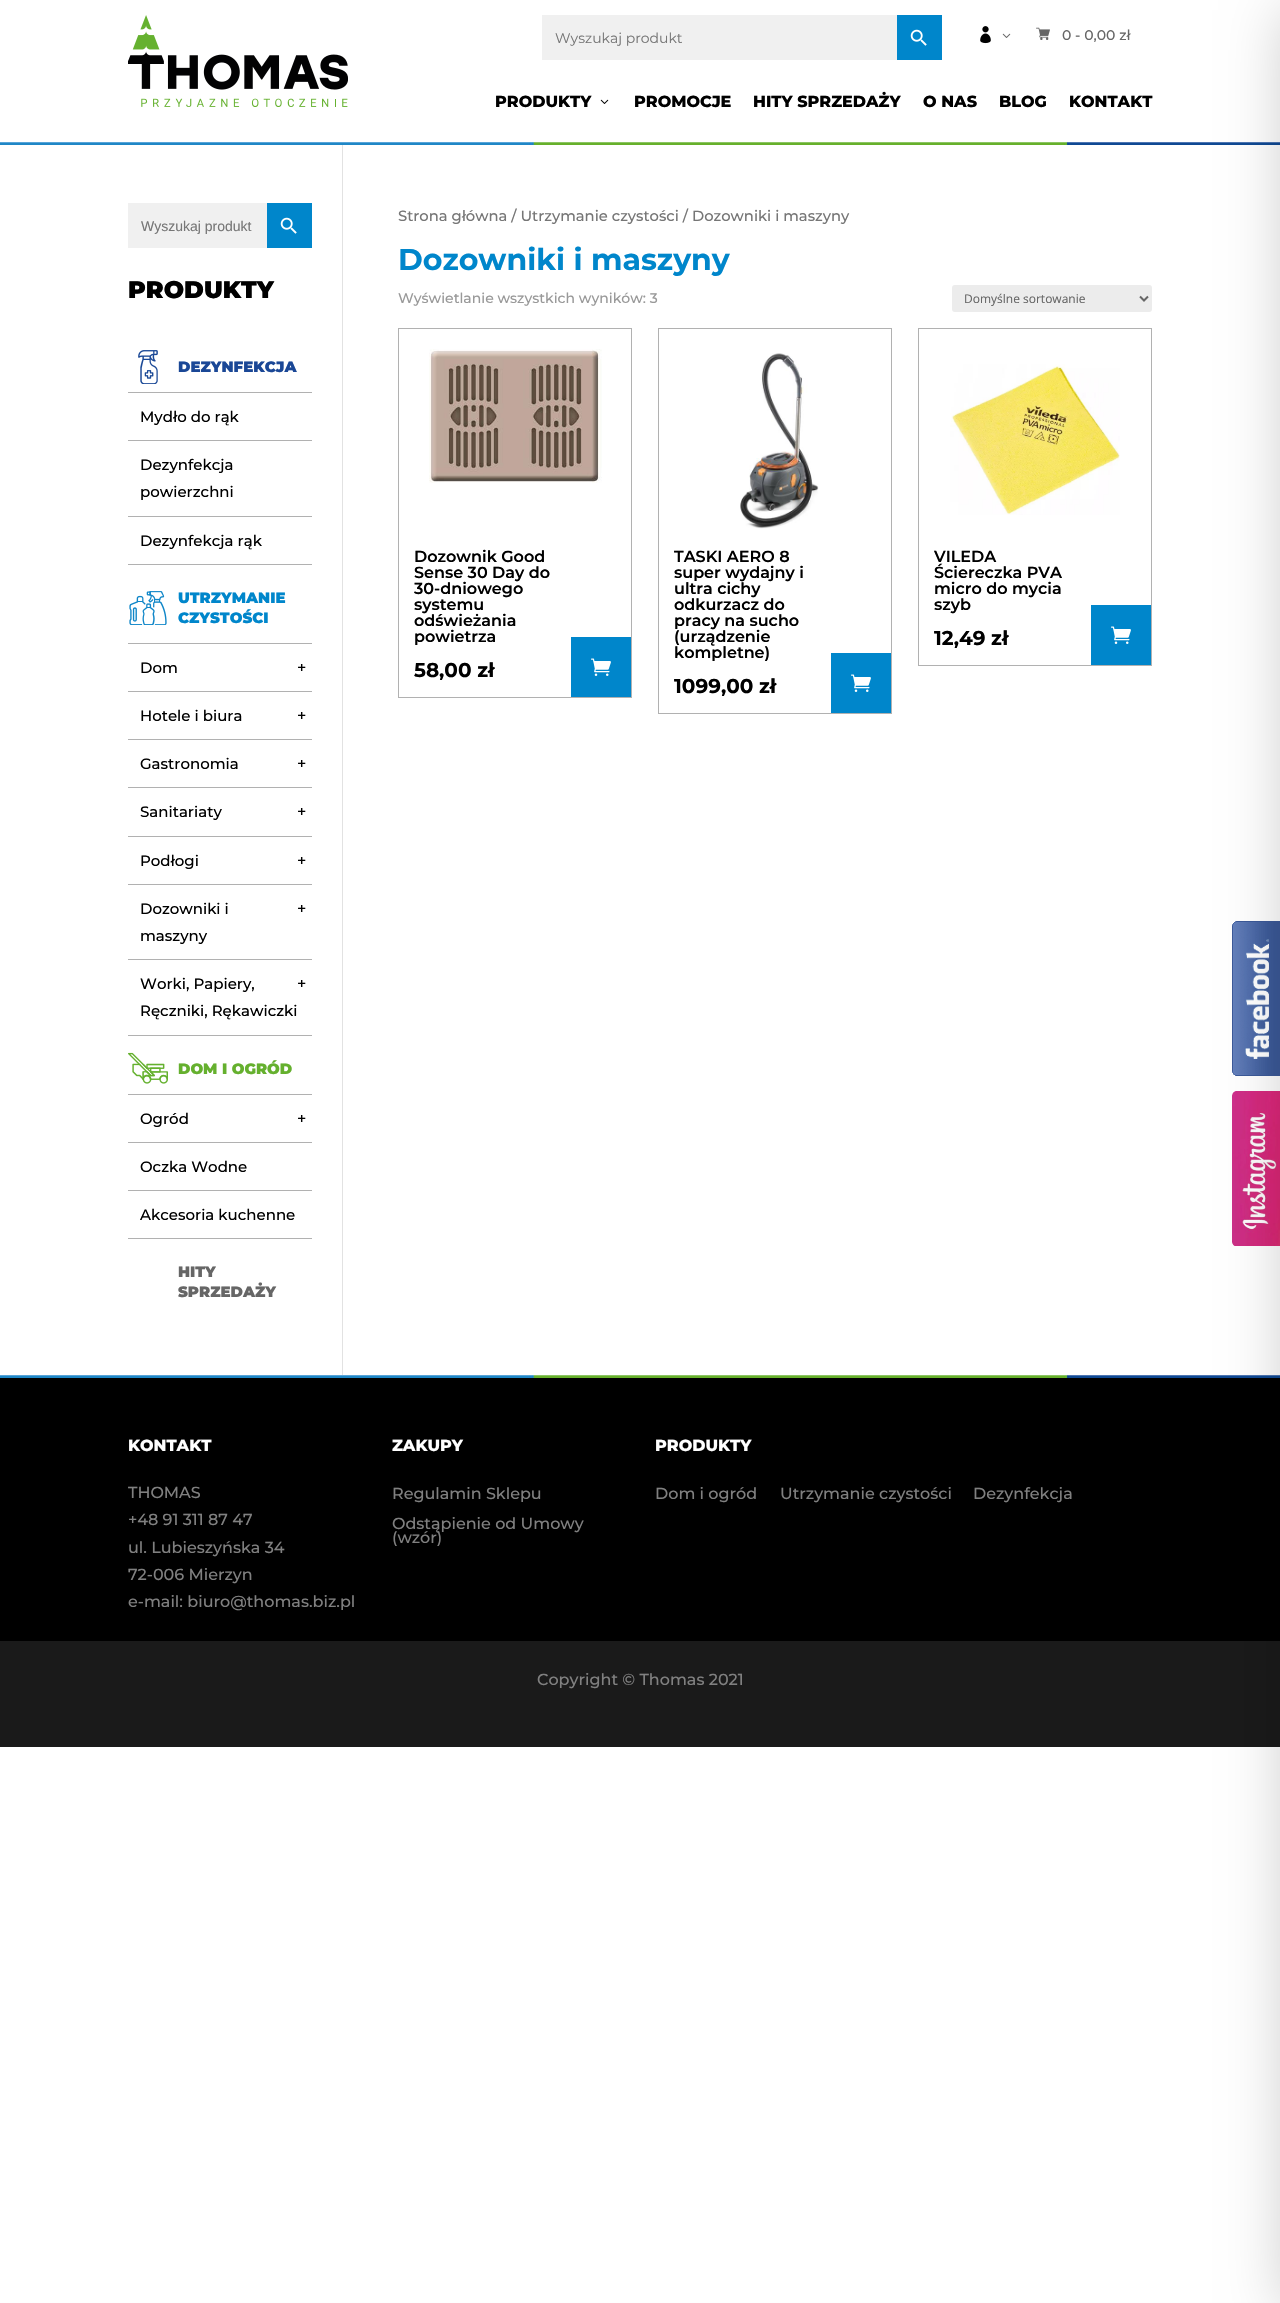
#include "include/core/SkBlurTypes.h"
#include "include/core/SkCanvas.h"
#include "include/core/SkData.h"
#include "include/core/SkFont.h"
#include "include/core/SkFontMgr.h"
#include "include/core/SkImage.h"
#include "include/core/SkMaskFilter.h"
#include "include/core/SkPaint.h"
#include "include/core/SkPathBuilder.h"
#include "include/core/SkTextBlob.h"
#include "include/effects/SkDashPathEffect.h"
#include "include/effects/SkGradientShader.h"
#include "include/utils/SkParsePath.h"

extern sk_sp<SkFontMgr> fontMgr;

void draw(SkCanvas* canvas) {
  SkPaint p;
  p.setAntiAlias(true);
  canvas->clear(SK_ColorWHITE);
  canvas->drawImageRect(SkImages::DeferredFromEncodedData(SkData::MakeFromFileName("images/1.png")), SkRect::MakeLTRB(128, 15, 348, 107), SkSamplingOptions());
  p.setColor(SkColorSetRGB(240, 240, 240));
  canvas->drawRect(SkRect::MakeLTRB(542, 15, 897, 60), p);
  p.setColor(SkColorSetRGB(0, 134, 203));
  canvas->drawRect(SkRect::MakeLTRB(897, 15, 942, 60), p);
  canvas->drawImageRect(SkImages::DeferredFromEncodedData(SkData::MakeFromFileName("images/2.png")), SkRect::MakeLTRB(910, 29, 927, 46), SkSamplingOptions());
  canvas->drawImageRect(SkImages::DeferredFromEncodedData(SkData::MakeFromFileName("images/3.png")), SkRect::MakeLTRB(980, 26, 991, 44), SkSamplingOptions());
  canvas->drawImageRect(SkImages::DeferredFromEncodedData(SkData::MakeFromFileName("images/4.png")), SkRect::MakeLTRB(1002, 33, 1011, 38), SkSamplingOptions());
  canvas->drawImageRect(SkImages::DeferredFromEncodedData(SkData::MakeFromFileName("images/5.png")), SkRect::MakeLTRB(1036, 27, 1050, 40), SkSamplingOptions());
  canvas->drawImageRect(SkImages::DeferredFromEncodedData(SkData::MakeFromFileName("images/6.png")), SkRect::MakeLTRB(600, 99, 609, 104), SkSamplingOptions());
  canvas->drawImageRect(SkImages::DeferredFromEncodedData(SkData::MakeFromFileName("images/7.png")), SkRect::MakeLTRB(0, 142, 1280, 145), SkSamplingOptions());
  p.setColor(SkColorSetRGB(226, 226, 226));
  canvas->drawRect(SkRect::MakeLTRB(342, 145, 343, 1375), p);
  p.setColor(SkColorSetRGB(240, 240, 240));
  canvas->drawRect(SkRect::MakeLTRB(128, 203, 267, 248), p);
  p.setColor(SkColorSetRGB(0, 134, 203));
  canvas->drawRect(SkRect::MakeLTRB(267, 203, 312, 248), p);
  canvas->drawImageRect(SkImages::DeferredFromEncodedData(SkData::MakeFromFileName("images/2.png")), SkRect::MakeLTRB(280, 217, 297, 234), SkSamplingOptions());
  canvas->drawImageRect(SkImages::DeferredFromEncodedData(SkData::MakeFromFileName("images/8.png")), SkRect::MakeLTRB(138, 350, 158, 384), SkSamplingOptions());
  p.setColor(SkColorSetRGB(177, 177, 177));
  canvas->drawRect(SkRect::MakeLTRB(128, 392, 312, 393), p);
  canvas->drawRect(SkRect::MakeLTRB(128, 440, 312, 441), p);
  canvas->drawRect(SkRect::MakeLTRB(128, 516, 312, 517), p);
  canvas->drawRect(SkRect::MakeLTRB(128, 564, 312, 565), p);
  canvas->drawImageRect(SkImages::DeferredFromEncodedData(SkData::MakeFromFileName("images/9.png")), SkRect::MakeLTRB(129, 591, 167, 625), SkSamplingOptions());
  canvas->drawRect(SkRect::MakeLTRB(128, 643, 312, 644), p);
  canvas->drawRect(SkRect::MakeLTRB(128, 691, 312, 692), p);
  canvas->drawRect(SkRect::MakeLTRB(128, 739, 312, 740), p);
  canvas->drawRect(SkRect::MakeLTRB(128, 787, 312, 788), p);
  canvas->drawRect(SkRect::MakeLTRB(128, 836, 312, 837), p);
  canvas->drawRect(SkRect::MakeLTRB(128, 884, 312, 885), p);
  canvas->drawRect(SkRect::MakeLTRB(128, 959, 312, 960), p);
  canvas->drawRect(SkRect::MakeLTRB(128, 1035, 312, 1036), p);
  canvas->drawImageRect(SkImages::DeferredFromEncodedData(SkData::MakeFromFileName("images/10.png")), SkRect::MakeLTRB(128, 1052, 168, 1084), SkSamplingOptions());
  canvas->drawRect(SkRect::MakeLTRB(128, 1094, 312, 1095), p);
  canvas->drawRect(SkRect::MakeLTRB(128, 1142, 312, 1143), p);
  canvas->drawRect(SkRect::MakeLTRB(128, 1190, 312, 1191), p);
  canvas->drawRect(SkRect::MakeLTRB(128, 1238, 312, 1239), p);
  p.setColor(SkColorSetRGB(236, 236, 236));
  canvas->drawRoundRect(SkRect::MakeLTRB(952, 285, 1152, 312), 3, 3, p);
  p.setStyle(SkPaint::kStroke_Style);
  p.setStrokeWidth(2);
  p.setColor(SkColorSetRGB(102, 102, 102));
  canvas->drawPath(SkPathBuilder().moveTo(1140, 296.5f).lineTo(1144, 300.5f).lineTo(1148, 296.5f).detach(), p);
  p.setStrokeWidth(1);
  p.setColor(SkColorSetRGB(177, 177, 177));
  canvas->drawRect(SkRect::MakeLTRB(398.5f, 328.5f, 631.5f, 697.5f), p);
  canvas->drawImageRect(SkImages::DeferredFromEncodedData(SkData::MakeFromFileName("images/11.png")), SkRect::MakeLTRB(429, 349, 602, 483), SkSamplingOptions());
  p.setStyle(SkPaint::kFill_Style);
  p.setColor(SkColorSetRGB(0, 134, 203));
  canvas->drawRect(SkRect::MakeLTRB(571, 637, 631, 697), p);
  canvas->drawImageRect(SkImages::DeferredFromEncodedData(SkData::MakeFromFileName("images/12.png")), SkRect::MakeLTRB(591, 658, 611, 676), SkSamplingOptions());
  p.setStyle(SkPaint::kStroke_Style);
  p.setColor(SkColorSetRGB(177, 177, 177));
  canvas->drawRect(SkRect::MakeLTRB(658.5f, 328.5f, 891.5f, 713.5f), p);
  canvas->drawImageRect(SkImages::DeferredFromEncodedData(SkData::MakeFromFileName("images/13.png")), SkRect::MakeLTRB(740, 353, 819, 529), SkSamplingOptions());
  p.setStyle(SkPaint::kFill_Style);
  p.setColor(SkColorSetRGB(0, 134, 203));
  canvas->drawRect(SkRect::MakeLTRB(831, 653, 891, 713), p);
  canvas->drawImageRect(SkImages::DeferredFromEncodedData(SkData::MakeFromFileName("images/12.png")), SkRect::MakeLTRB(851, 674, 871, 692), SkSamplingOptions());
  p.setStyle(SkPaint::kStroke_Style);
  p.setColor(SkColorSetRGB(177, 177, 177));
  canvas->drawRect(SkRect::MakeLTRB(918.5f, 328.5f, 1151.5f, 665.5f), p);
  canvas->drawImageRect(SkImages::DeferredFromEncodedData(SkData::MakeFromFileName("images/14.png")), SkRect::MakeLTRB(950, 364, 1120, 515), SkSamplingOptions());
  p.setStyle(SkPaint::kFill_Style);
  p.setColor(SkColorSetRGB(0, 134, 203));
  canvas->drawRect(SkRect::MakeLTRB(1091, 605, 1151, 665), p);
  canvas->drawImageRect(SkImages::DeferredFromEncodedData(SkData::MakeFromFileName("images/12.png")), SkRect::MakeLTRB(1111, 626, 1131, 644), SkSamplingOptions());
  p.setColor(SK_ColorBLACK);
  canvas->drawRect(SkRect::MakeLTRB(0, 1378, 1280, 1641), p);
  canvas->drawImageRect(SkImages::DeferredFromEncodedData(SkData::MakeFromFileName("images/7.png")), SkRect::MakeLTRB(0, 1375, 1280, 1378), SkSamplingOptions());
  p.setColor(SkColorSetRGB(26, 26, 26));
  canvas->drawRect(SkRect::MakeLTRB(0, 1641, 1280, 1747), p);
  canvas->drawImageRect(SkImages::DeferredFromEncodedData(SkData::MakeFromFileName("images/15.png")), SkRect::MakeLTRB(1232, 921, 1280, 1076), SkSamplingOptions());
  canvas->drawImageRect(SkImages::DeferredFromEncodedData(SkData::MakeFromFileName("images/16.png")), SkRect::MakeLTRB(1232, 1091, 1280, 1246), SkSamplingOptions());
  p.setColor(SkColorSetARGB(51, 0, 0, 0));
  p.setMaskFilter(SkMaskFilter::MakeBlur(kNormal_SkBlurStyle, 30));
  canvas->drawRect(SkRect::MakeLTRB(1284, 10, 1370, 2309), p);
  p.setMaskFilter(nullptr);
  SkFont font1(fontMgr->matchFamilyStyle("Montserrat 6", SkFontStyle(100, SkFontStyle::kNormal_Width, SkFontStyle::kUpright_Slant)), 14);
  font1.setSubpixel(true);
  p.setColor(SkColorSetRGB(118, 118, 118));
  canvas->drawString("Wyszukaj produkt", 555, 43, font1, p);
  SkFont font2(fontMgr->matchFamilyStyle("Montserrat", SkFontStyle(100, SkFontStyle::kNormal_Width, SkFontStyle::kUpright_Slant)), 14);
  font2.setSubpixel(true);
  p.setColor(SkColorSetRGB(102, 102, 102));
  canvas->drawString("0 - 0,00 zł", 1062, 40, font2, p);
  SkFont font3(fontMgr->matchFamilyStyle("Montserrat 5", SkFontStyle(100, SkFontStyle::kNormal_Width, SkFontStyle::kUpright_Slant)), 16);
  font3.setSubpixel(true);
  p.setColor(SK_ColorBLACK);
  canvas->drawString("PRODUKTY", 495, 107, font3, p);
  canvas->drawString("PROMOCJE", 634, 107, font3, p);
  canvas->drawString("HITY SPRZEDAŻY", 753, 107, font3, p);
  canvas->drawString("O NAS", 923, 107, font3, p);
  canvas->drawString("BLOG", 999, 107, font3, p);
  canvas->drawString("KONTAKT", 1069, 107, font3, p);
  SkFont font4(fontMgr->matchFamilyStyle("Liberation Sans", SkFontStyle::Normal()), 14);
  font4.setSubpixel(true);
  p.setColor(SkColorSetRGB(118, 118, 118));
  canvas->drawString("Wyszukaj produkt", 141, 231, font4, p);
  SkFont font5(fontMgr->matchFamilyStyle("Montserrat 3", SkFontStyle(100, SkFontStyle::kNormal_Width, SkFontStyle::kUpright_Slant)), 24);
  font5.setSubpixel(true);
  p.setColor(SK_ColorBLACK);
  canvas->drawString("PRODUKTY", 128, 298, font5, p);
  SkFont font6(fontMgr->matchFamilyStyle("Montserrat 3", SkFontStyle(100, SkFontStyle::kNormal_Width, SkFontStyle::kUpright_Slant)), 15);
  font6.setSubpixel(true);
  p.setColor(SkColorSetRGB(26, 71, 150));
  canvas->drawString("DEZYNFEKCJA", 178, 372, font6, p);
  SkFont font7(fontMgr->matchFamilyStyle("Montserrat", SkFontStyle(100, SkFontStyle::kNormal_Width, SkFontStyle::kUpright_Slant)), 15);
  font7.setSubpixel(true);
  p.setColor(SK_ColorBLACK);
  canvas->drawString("Mydło do rąk", 140, 422, font7, p);
  canvas->drawString("Dezynfekcja", 140, 470, font7, p);
  canvas->drawString("powierzchni", 140, 497, font7, p);
  canvas->drawString("Dezynfekcja rąk", 140, 546, font7, p);
  p.setColor(SkColorSetRGB(0, 134, 203));
  canvas->drawString("UTRZYMANIE", 178, 603, font6, p);
  canvas->drawString("CZYSTOŚCI", 178, 623, font6, p);
  p.setColor(SK_ColorBLACK);
  canvas->drawString("Dom", 140, 673, font7, p);
  SkFont font8(fontMgr->matchFamilyStyle("Montserrat", SkFontStyle(100, SkFontStyle::kNormal_Width, SkFontStyle::kUpright_Slant)), 16);
  font8.setSubpixel(true);
  canvas->drawString("+", 297, 673, font8, p);
  canvas->drawString("Hotele i biura", 140, 721, font7, p);
  canvas->drawString("+", 297, 721, font8, p);
  canvas->drawString("Gastronomia", 140, 769, font7, p);
  canvas->drawString("+", 297, 769, font8, p);
  canvas->drawString("Sanitariaty", 140, 817, font7, p);
  canvas->drawString("+", 297, 817, font8, p);
  canvas->drawString("Podłogi", 140, 866, font7, p);
  canvas->drawString("+", 297, 866, font8, p);
  canvas->drawString("Dozowniki i", 140, 914, font7, p);
  canvas->drawString("maszyny", 140, 941, font7, p);
  canvas->drawString("+", 297, 914, font8, p);
  canvas->drawString("Worki, Papiery,", 140, 989, font7, p);
  canvas->drawString("Ręczniki, Rękawiczki", 140, 1016, font7, p);
  canvas->drawString("+", 297, 989, font8, p);
  p.setColor(SkColorSetRGB(101, 176, 46));
  canvas->drawString("DOM I OGRÓD", 178, 1074, font6, p);
  p.setColor(SK_ColorBLACK);
  canvas->drawString("Ogród", 140, 1124, font7, p);
  canvas->drawString("+", 297, 1124, font8, p);
  canvas->drawString("Oczka Wodne", 140, 1172, font7, p);
  canvas->drawString("Akcesoria kuchenne", 140, 1220, font7, p);
  p.setColor(SkColorSetRGB(102, 102, 102));
  canvas->drawString("HITY", 178, 1277, font6, p);
  canvas->drawString("SPRZEDAŻY", 178, 1297, font6, p);
  SkFont font9(fontMgr->matchFamilyStyle("Montserrat", SkFontStyle(100, SkFontStyle::kNormal_Width, SkFontStyle::kUpright_Slant)), 14.75f);
  font9.setSubpixel(true);
  p.setColor(SkColorSetRGB(118, 118, 118));
  canvas->drawString("Strona główna / Utrzymanie czystości / Dozowniki i maszyny", 398, 221, font9, p);
  SkFont font10(fontMgr->matchFamilyStyle("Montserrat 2", SkFontStyle(100, SkFontStyle::kNormal_Width, SkFontStyle::kUpright_Slant)), 30);
  font10.setSubpixel(true);
  p.setColor(SkColorSetRGB(0, 134, 203));
  canvas->drawString("Dozowniki i maszyny", 398, 270, font10, p);
  p.setColor(SkColorSetRGB(153, 153, 153));
  canvas->drawString("Wyświetlanie wszystkich wyników: 3", 398, 303, font2, p);
  SkFont font11(fontMgr->matchFamilyStyle("Open Sans", SkFontStyle::Normal()), 12);
  font11.setSubpixel(true);
  p.setColor(SkColorSetRGB(102, 102, 102));
  canvas->drawString("Domyślne sortowanie", 964, 303, font11, p);
  SkFont font12(fontMgr->matchFamilyStyle("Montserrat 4", SkFontStyle(100, SkFontStyle::kNormal_Width, SkFontStyle::kUpright_Slant)), 16);
  font12.setSubpixel(true);
  p.setColor(SK_ColorBLACK);
  canvas->drawString("Dozownik Good", 414, 562, font12, p);
  canvas->drawString("Sense 30 Day do", 414, 578, font12, p);
  canvas->drawString("30-dniowego", 414, 594, font12, p);
  canvas->drawString("systemu", 414, 610, font12, p);
  canvas->drawString("odświeżania", 414, 626, font12, p);
  canvas->drawString("powietrza", 414, 642, font12, p);
  SkFont font13(fontMgr->matchFamilyStyle("Montserrat 2", SkFontStyle(100, SkFontStyle::kNormal_Width, SkFontStyle::kUpright_Slant)), 20);
  font13.setSubpixel(true);
  canvas->drawString("58,00 zł", 414, 677, font13, p);
  canvas->drawString("TASKI AERO 8", 674, 562, font12, p);
  canvas->drawString("super wydajny i", 674, 578, font12, p);
  canvas->drawString("ultra cichy", 674, 594, font12, p);
  canvas->drawString("odkurzacz do", 674, 610, font12, p);
  canvas->drawString("pracy na sucho", 674, 626, font12, p);
  canvas->drawString("(urządzenie", 674, 642, font12, p);
  canvas->drawString("kompletne)", 674, 658, font12, p);
  canvas->drawString("1099,00 zł", 674, 693, font13, p);
  canvas->drawString("VILEDA", 934, 562, font12, p);
  canvas->drawString("Ściereczka PVA", 934, 578, font12, p);
  canvas->drawString("micro do mycia", 934, 594, font12, p);
  canvas->drawString("szyb", 934, 610, font12, p);
  canvas->drawString("12,49 zł", 934, 645, font13, p);
  p.setColor(SK_ColorWHITE);
  canvas->drawString("KONTAKT", 128, 1451, font3, p);
  p.setColor(SkColorSetRGB(128, 128, 128));
  canvas->drawString("THOMAS", 128, 1498, font8, p);
  canvas->drawString("+48 91 311 87 47", 128, 1525, font8, p);
  canvas->drawString("ul. Lubieszyńska 34", 128, 1553, font8, p);
  canvas->drawString("72-006 Mierzyn", 128, 1580, font8, p);
  canvas->drawString("e-mail: biuro@thomas.biz.pl", 128, 1607, font8, p);
  p.setColor(SK_ColorWHITE);
  canvas->drawString("ZAKUPY", 392, 1451, font3, p);
  p.setColor(SkColorSetRGB(128, 128, 128));
  canvas->drawString("Regulamin Sklepu", 392, 1499, font8, p);
  canvas->drawString("Odstąpienie od Umowy", 392, 1529, font8, p);
  canvas->drawString("(wzór)", 392, 1543, font8, p);
  p.setColor(SK_ColorWHITE);
  canvas->drawString("PRODUKTY", 655, 1451, font3, p);
  p.setColor(SkColorSetRGB(128, 128, 128));
  canvas->drawString("Dom i ogród", 655, 1499, font8, p);
  canvas->drawString("Utrzymanie czystości", 780, 1499, font8, p);
  canvas->drawString("Dezynfekcja", 973, 1499, font8, p);
  canvas->drawString("Copyright © Thomas 2021", 537, 1685, font8, p);
}
